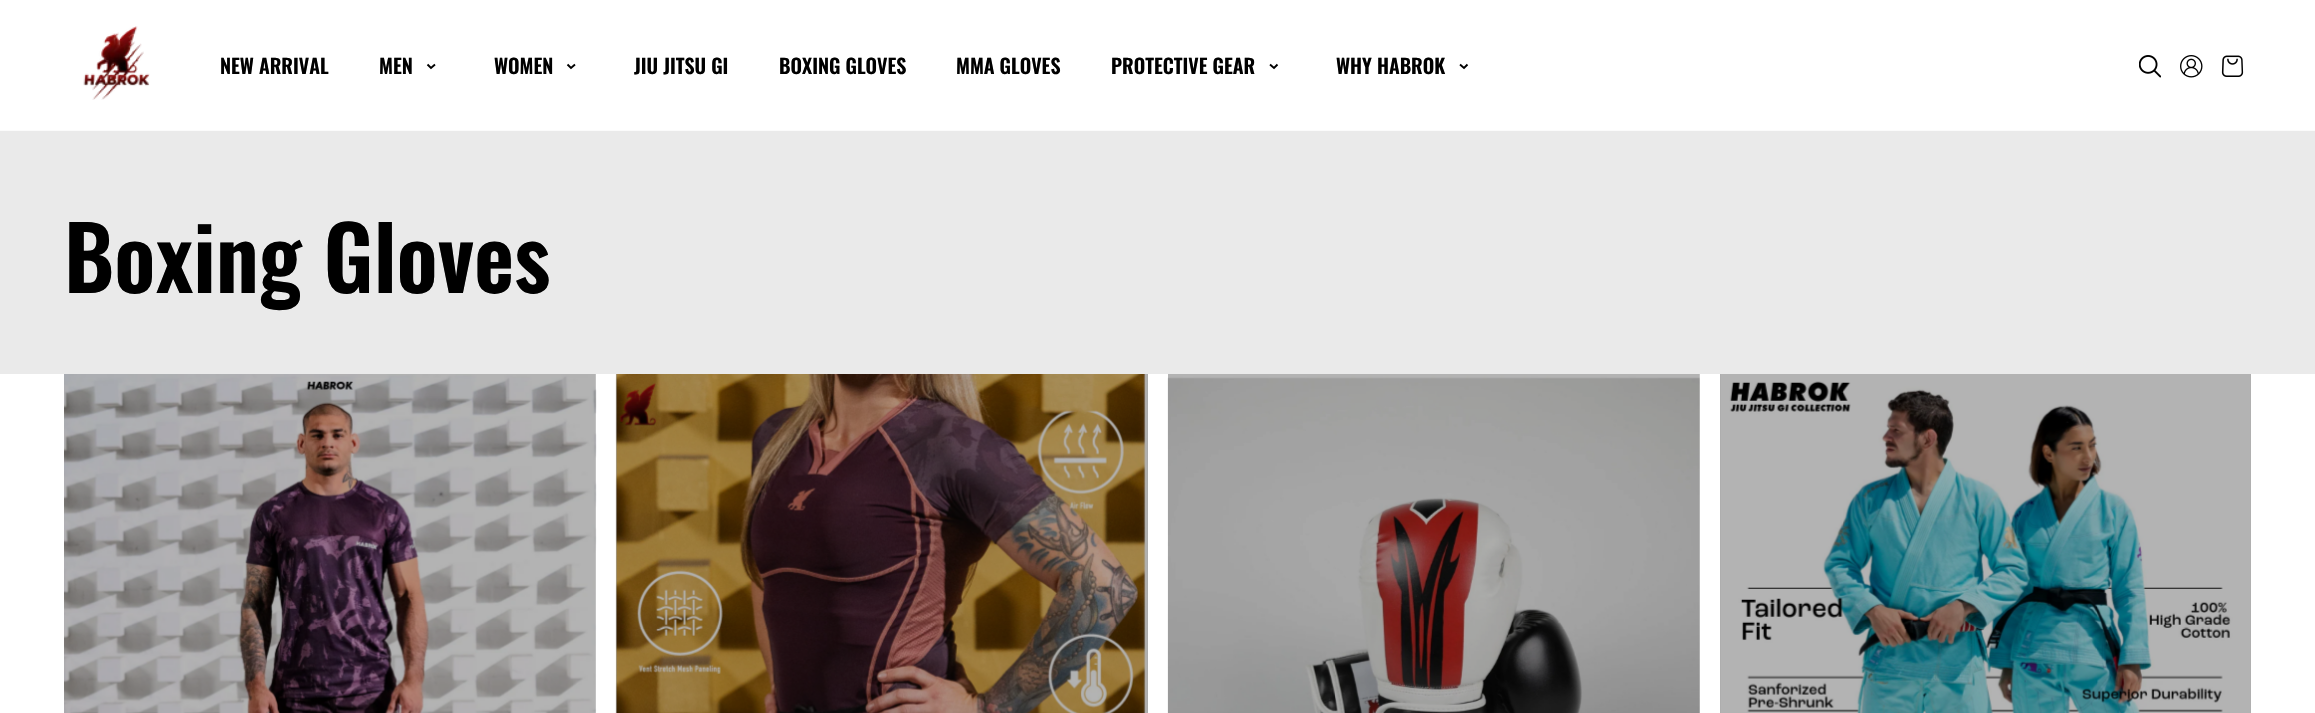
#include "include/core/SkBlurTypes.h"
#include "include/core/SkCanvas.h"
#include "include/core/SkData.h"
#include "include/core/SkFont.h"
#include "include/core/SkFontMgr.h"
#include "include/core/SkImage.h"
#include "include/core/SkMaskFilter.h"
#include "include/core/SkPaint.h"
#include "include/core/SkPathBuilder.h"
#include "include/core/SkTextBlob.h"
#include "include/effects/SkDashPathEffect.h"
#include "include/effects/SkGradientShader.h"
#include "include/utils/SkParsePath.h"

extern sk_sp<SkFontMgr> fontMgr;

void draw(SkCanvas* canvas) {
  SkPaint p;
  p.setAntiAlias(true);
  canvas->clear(SkColorSetRGB(234, 234, 234));
  p.setColor(SK_ColorWHITE);
  canvas->drawRect(SkRect::MakeLTRB(0, 0, 2315, 130), p);
  canvas->drawImageRect(SkImages::DeferredFromEncodedData(SkData::MakeFromFileName("images/1.png")), SkRect::MakeLTRB(83, 26, 150, 100), SkSamplingOptions());
  p.setStyle(SkPaint::kStroke_Style);
  p.setStrokeWidth(1.9f);
  p.setColor(SK_ColorBLACK);
  canvas->drawPath(SkPathBuilder().moveTo(427.5f, 64.5f).lineTo(431, 68).lineTo(435, 64.5f).detach(), p);
  canvas->drawPath(SkPathBuilder().moveTo(567.5f, 64.5f).lineTo(571, 68).lineTo(575, 64.5f).detach(), p);
  canvas->drawPath(SkPathBuilder().moveTo(1270, 64.5f).lineTo(1274, 68).lineTo(1277.5f, 64.5f).detach(), p);
  canvas->drawPath(SkPathBuilder().moveTo(1460, 64.5f).lineTo(1464, 68).lineTo(1467.5f, 64.5f).detach(), p);
  canvas->drawImageRect(SkImages::DeferredFromEncodedData(SkData::MakeFromFileName("images/2.png")), SkRect::MakeLTRB(2139, 55, 2161, 78), SkSamplingOptions());
  canvas->drawImageRect(SkImages::DeferredFromEncodedData(SkData::MakeFromFileName("images/3.png")), SkRect::MakeLTRB(2180, 55, 2203, 78), SkSamplingOptions());
  canvas->drawImageRect(SkImages::DeferredFromEncodedData(SkData::MakeFromFileName("images/4.png")), SkRect::MakeLTRB(2221, 55, 2244, 77), SkSamplingOptions());
  p.setStyle(SkPaint::kFill_Style);
  p.setColor(SkColorSetRGB(251, 251, 251));
  canvas->drawRect(SkRect::MakeLTRB(0, 130, 2315, 131), p);
  p.setColor(SK_ColorWHITE);
  canvas->drawRect(SkRect::MakeLTRB(0, 374, 2315, 713), p);
  canvas->drawImageRect(SkImages::DeferredFromEncodedData(SkData::MakeFromFileName("images/5.png")), SkRect::MakeLTRB(64, 374, 597, 713), SkSamplingOptions());
  p.setColor(SkColorSetRGB(164, 164, 164));
  canvas->drawRect(SkRect::MakeLTRB(616, 374, 1148, 713), p);
  canvas->drawImageRect(SkImages::DeferredFromEncodedData(SkData::MakeFromFileName("images/6.png")), SkRect::MakeLTRB(615, 374, 1148, 713), SkSamplingOptions());
  canvas->drawImageRect(SkImages::DeferredFromEncodedData(SkData::MakeFromFileName("images/7.png")), SkRect::MakeLTRB(1167, 374, 1700, 713), SkSamplingOptions());
  canvas->drawRect(SkRect::MakeLTRB(1720, 374, 2251, 713), p);
  canvas->drawImageRect(SkImages::DeferredFromEncodedData(SkData::MakeFromFileName("images/8.png")), SkRect::MakeLTRB(1720, 374, 2251, 713), SkSamplingOptions());
  SkFont font1(fontMgr->matchFamilyStyle("Oswald", SkFontStyle(600, SkFontStyle::kNormal_Width, SkFontStyle::kUpright_Slant)), 20);
  font1.setSubpixel(true);
  p.setColor(SK_ColorBLACK);
  canvas->drawString("NEW ARRIVAL", 220, 74, font1, p);
  canvas->drawString("MEN", 379, 74, font1, p);
  canvas->drawString("WOMEN", 494, 74, font1, p);
  canvas->drawString("JIU JITSU GI", 634, 74, font1, p);
  canvas->drawString("BOXING GLOVES", 779, 74, font1, p);
  canvas->drawString("MMA GLOVES", 956, 74, font1, p);
  canvas->drawString("PROTECTIVE GEAR", 1111, 74, font1, p);
  canvas->drawString("WHY HABROK", 1336, 74, font1, p);
  SkFont font2(fontMgr->matchFamilyStyle("Oswald", SkFontStyle(600, SkFontStyle::kNormal_Width, SkFontStyle::kUpright_Slant)), 87.5f);
  font2.setSubpixel(true);
  canvas->drawString("Boxing Gloves", 64, 293, font2, p);
}
